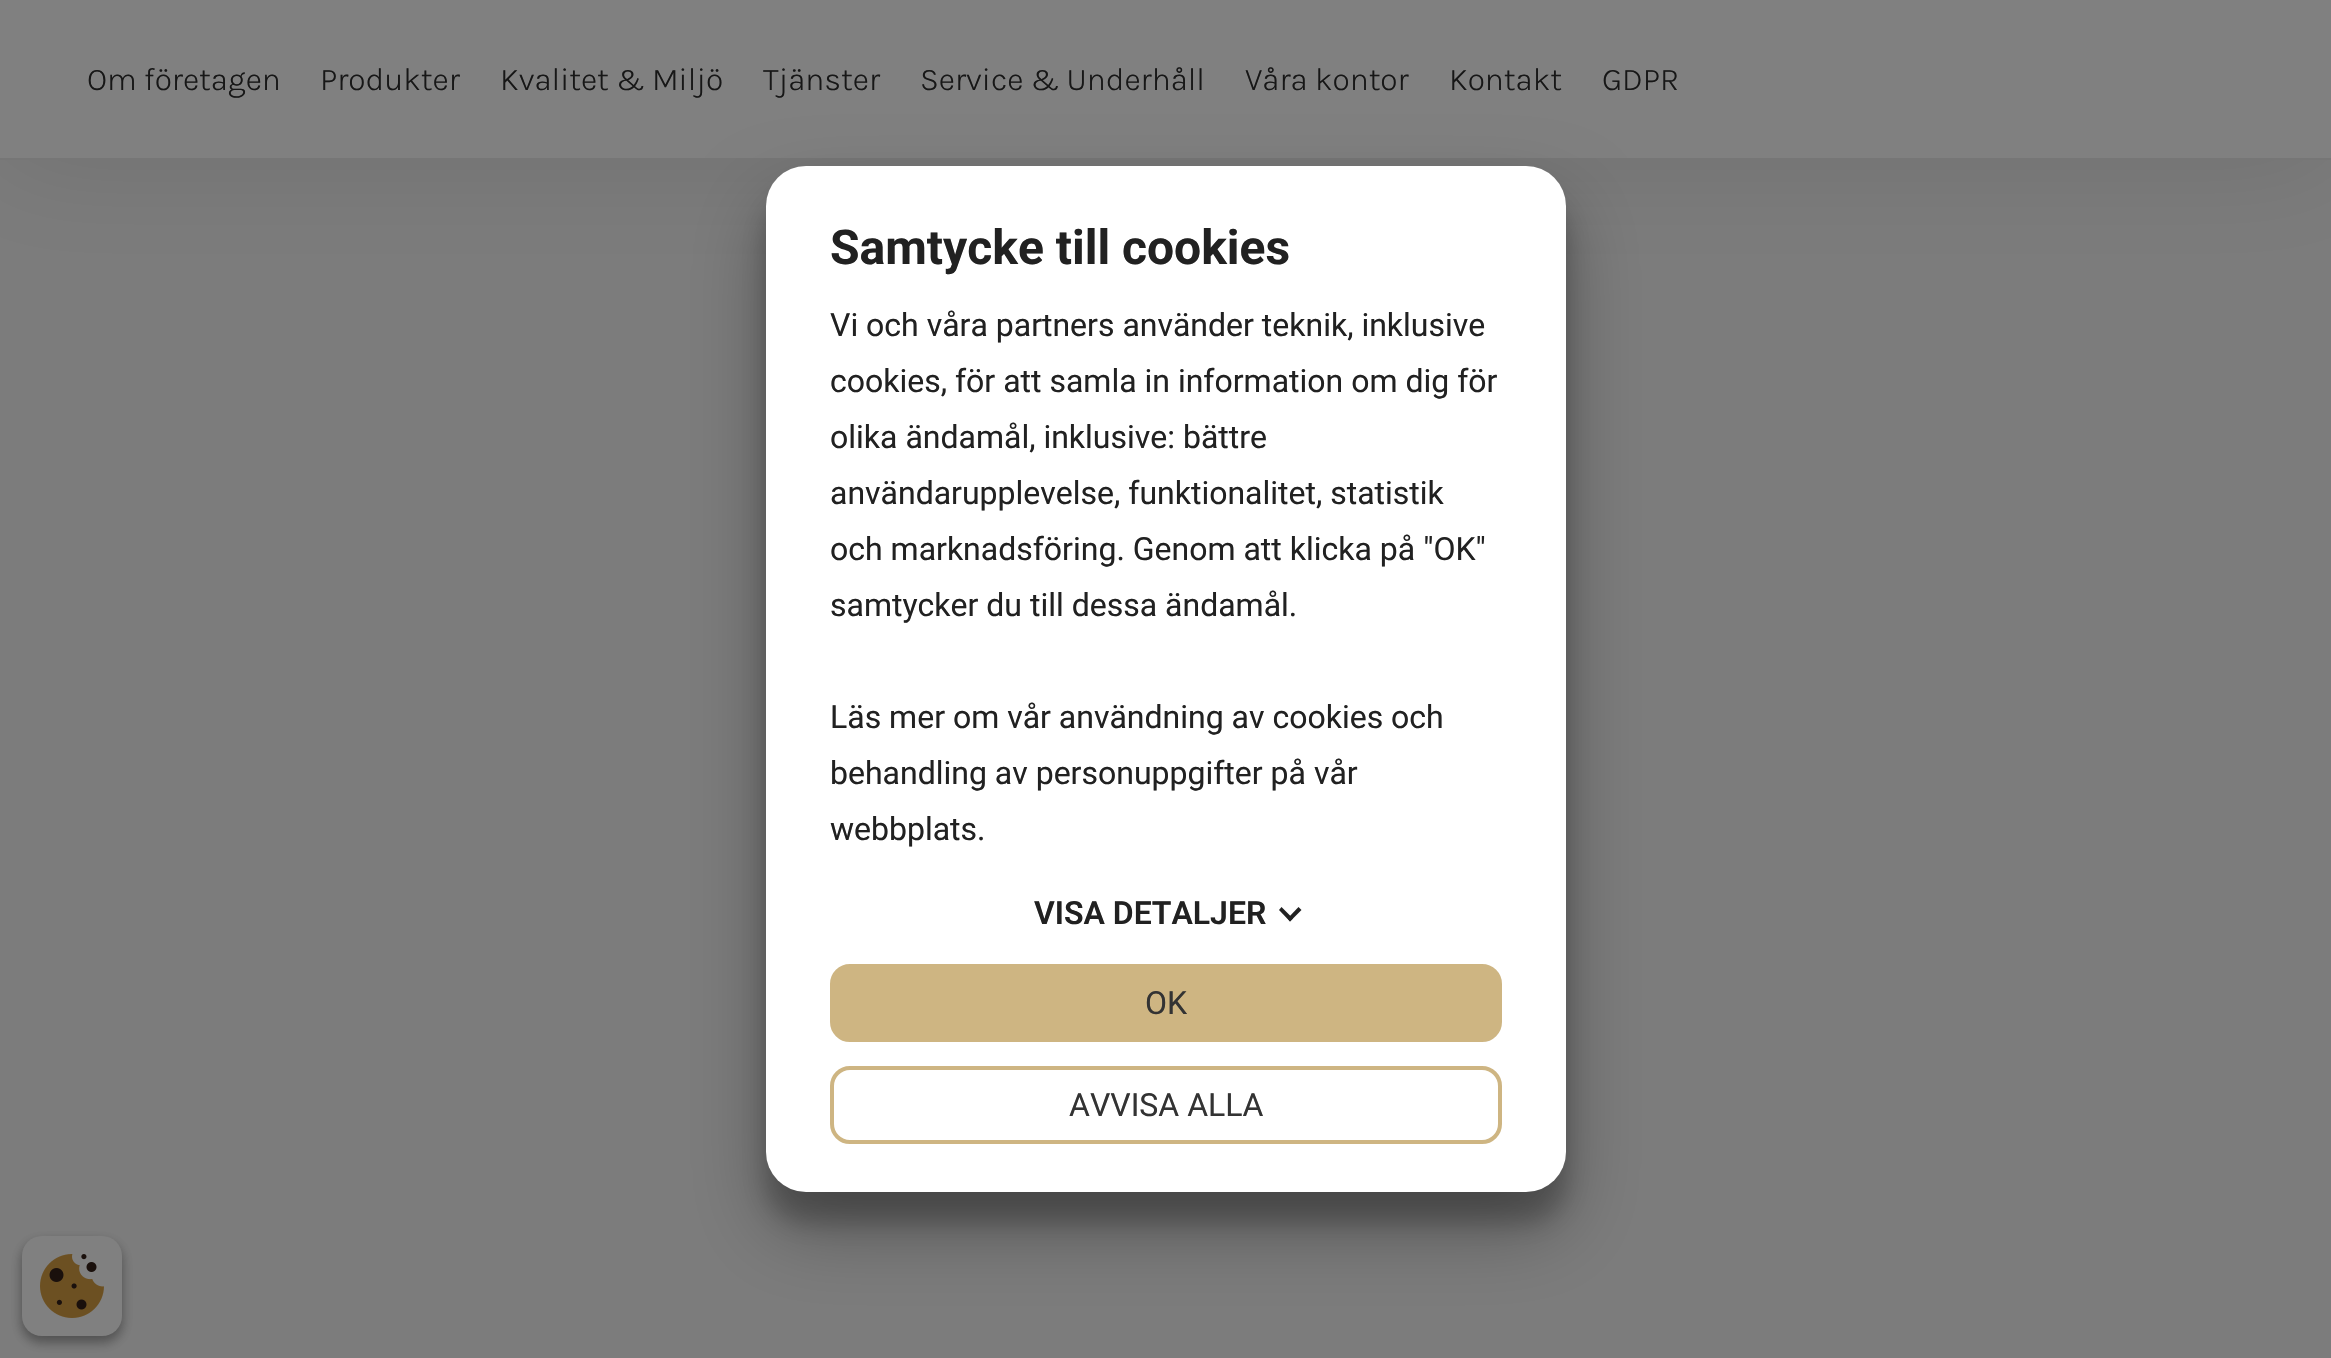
#include "include/core/SkBlurTypes.h"
#include "include/core/SkCanvas.h"
#include "include/core/SkData.h"
#include "include/core/SkFont.h"
#include "include/core/SkFontMgr.h"
#include "include/core/SkImage.h"
#include "include/core/SkMaskFilter.h"
#include "include/core/SkPaint.h"
#include "include/core/SkPathBuilder.h"
#include "include/core/SkTextBlob.h"
#include "include/effects/SkDashPathEffect.h"
#include "include/effects/SkGradientShader.h"
#include "include/utils/SkParsePath.h"

extern sk_sp<SkFontMgr> fontMgr;

void draw(SkCanvas* canvas) {
  SkPaint p;
  p.setAntiAlias(true);
  canvas->clear(SkColorSetRGB(124, 124, 124));
  p.setColor(SkColorSetARGB(26, 0, 0, 0));
  p.setMaskFilter(SkMaskFilter::MakeBlur(kNormal_SkBlurStyle, 56));
  canvas->drawRect(SkRect::MakeLTRB(0, 0, 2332, 160), p);
  p.setMaskFilter(nullptr);
  p.setColor(SkColorSetRGB(118, 118, 118));
  canvas->drawRect(SkRect::MakeLTRB(0, 158, 2331, 160), p);
  p.setColor(SkColorSetRGB(128, 128, 128));
  canvas->drawRect(SkRect::MakeLTRB(0, 0, 2331, 158), p);
  p.setColor(SkColorSetARGB(56, 0, 0, 0));
  p.setMaskFilter(SkMaskFilter::MakeBlur(kNormal_SkBlurStyle, 12));
  canvas->drawRoundRect(SkRect::MakeLTRB(766, 196, 1566, 1222), 40, 40, p);
  p.setMaskFilter(nullptr);
  p.setColor(SkColorSetARGB(77, 0, 0, 0));
  p.setMaskFilter(SkMaskFilter::MakeBlur(kNormal_SkBlurStyle, 38));
  canvas->drawRoundRect(SkRect::MakeLTRB(766, 204, 1566, 1230), 40, 40, p);
  p.setMaskFilter(nullptr);
  p.setColor(SK_ColorWHITE);
  canvas->drawRoundRect(SkRect::MakeLTRB(766, 166, 1566, 1192), 40, 40, p);
  p.setColor(SkColorSetRGB(33, 33, 33));
  canvas->drawPath(SkPathBuilder().moveTo(1298.5f, 907).lineTo(1301.5f, 910).lineTo(1290, 921.5f).lineTo(1287.5f, 918.5f).close().detach(), p);
  canvas->drawPath(SkPathBuilder().moveTo(1281.5f, 907).lineTo(1293, 918.5f).lineTo(1290, 921.5f).lineTo(1279, 910).close().detach(), p);
  p.setColor(SkColorSetRGB(206, 181, 130));
  canvas->drawRoundRect(SkRect::MakeLTRB(832, 966, 1500, 1040), 18, 18, p);
  p.setStyle(SkPaint::kStroke_Style);
  p.setStrokeWidth(4);
  canvas->drawRoundRect(SkRect::MakeLTRB(832, 966, 1500, 1040), 18, 18, p);
  canvas->drawRoundRect(SkRect::MakeLTRB(832, 1068, 1500, 1142), 18, 18, p);
  p.setStyle(SkPaint::kFill_Style);
  p.setColor(SkColorSetARGB(59, 0, 0, 0));
  p.setMaskFilter(SkMaskFilter::MakeBlur(kNormal_SkBlurStyle, 6));
  canvas->drawRoundRect(SkRect::MakeLTRB(22, 1242, 122, 1342), 20, 20, p);
  p.setMaskFilter(nullptr);
  p.setColor(SkColorSetARGB(41, 0, 0, 0));
  p.setMaskFilter(SkMaskFilter::MakeBlur(kNormal_SkBlurStyle, 6));
  canvas->drawRoundRect(SkRect::MakeLTRB(22, 1242, 122, 1342), 20, 20, p);
  p.setMaskFilter(nullptr);
  p.setColor(SkColorSetRGB(128, 128, 128));
  canvas->drawRoundRect(SkRect::MakeLTRB(22, 1236, 122, 1336), 20, 20, p);
  canvas->drawImageRect(SkImages::DeferredFromEncodedData(SkData::MakeFromFileName("images/1.png")), SkRect::MakeLTRB(40, 1254, 104, 1318), SkSamplingOptions());
  SkFont font1(fontMgr->matchFamilyStyle("Karla", SkFontStyle(300, SkFontStyle::kNormal_Width, SkFontStyle::kUpright_Slant)), 32);
  font1.setSubpixel(true);
  p.setColor(SkColorSetRGB(23, 23, 23));
  canvas->drawString("Om företagen", 87, 90, font1, p);
  canvas->drawString("Produkter", 320, 90, font1, p);
  canvas->drawString("Kvalitet & Miljö", 500, 90, font1, p);
  canvas->drawString("Tjänster", 763, 90, font1, p);
  canvas->drawString("Service & Underhåll", 920, 90, font1, p);
  canvas->drawString("Våra kontor", 1245, 90, font1, p);
  canvas->drawString("Kontakt", 1449, 90, font1, p);
  canvas->drawString("GDPR", 1602, 90, font1, p);
  SkFont font2(fontMgr->matchFamilyStyle("Roboto", SkFontStyle::Bold()), 48);
  font2.setSubpixel(true);
  p.setColor(SkColorSetRGB(33, 33, 33));
  canvas->drawString("Samtycke till cookies", 830, 264, font2, p);
  SkFont font3(fontMgr->matchFamilyStyle("Roboto", SkFontStyle::Normal()), 32);
  font3.setSubpixel(true);
  canvas->drawString("Vi och våra partners använder teknik, inklusive", 830, 336, font3, p);
  canvas->drawString("cookies, för att samla in information om dig för", 830, 392, font3, p);
  canvas->drawString("olika ändamål, inklusive: bättre", 830, 448, font3, p);
  canvas->drawString("användarupplevelse, funktionalitet, statistik", 830, 504, font3, p);
  canvas->drawString("och marknadsföring. Genom att klicka på \"OK\"", 830, 560, font3, p);
  canvas->drawString("samtycker du till dessa ändamål.", 830, 616, font3, p);
  canvas->drawString("Läs mer om vår användning av cookies och", 830, 728, font3, p);
  canvas->drawString("behandling av personuppgifter på vår", 830, 784, font3, p);
  canvas->drawString("webbplats.", 830, 840, font3, p);
  SkFont font4(fontMgr->matchFamilyStyle("Roboto", SkFontStyle(600, SkFontStyle::kNormal_Width, SkFontStyle::kUpright_Slant)), 32);
  font4.setSubpixel(true);
  canvas->drawString("VISA DETALJER", 1034, 924, font4, p);
  p.setColor(SkColorSetRGB(51, 51, 51));
  canvas->drawString("OK", 1145, 1014, font3, p);
  canvas->drawString("AVVISA ALLA", 1069, 1116, font3, p);
}
